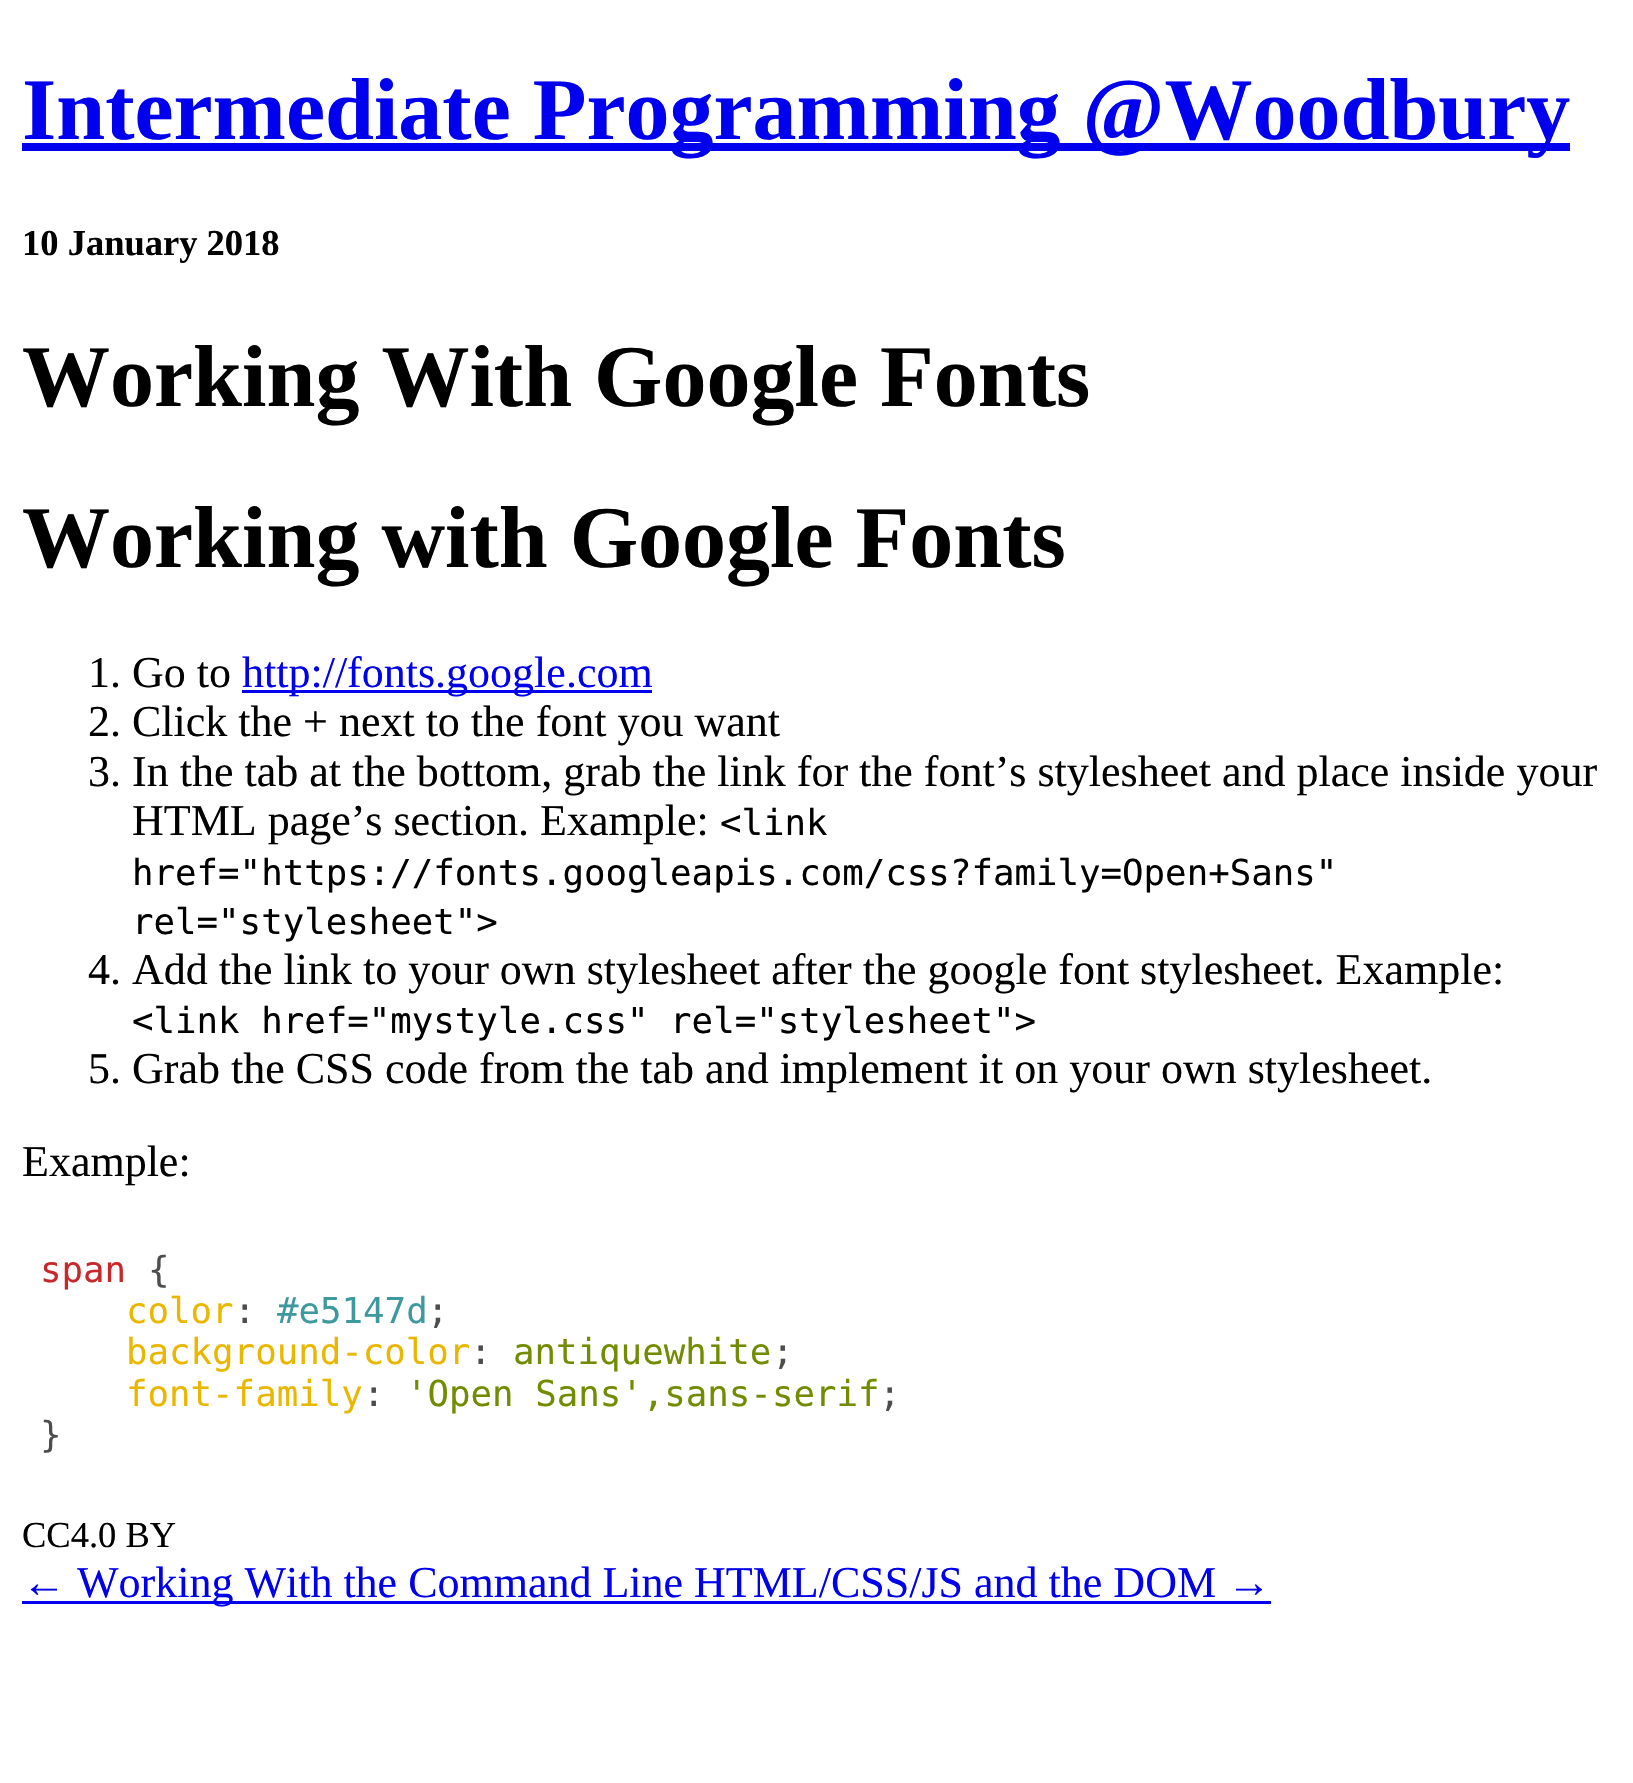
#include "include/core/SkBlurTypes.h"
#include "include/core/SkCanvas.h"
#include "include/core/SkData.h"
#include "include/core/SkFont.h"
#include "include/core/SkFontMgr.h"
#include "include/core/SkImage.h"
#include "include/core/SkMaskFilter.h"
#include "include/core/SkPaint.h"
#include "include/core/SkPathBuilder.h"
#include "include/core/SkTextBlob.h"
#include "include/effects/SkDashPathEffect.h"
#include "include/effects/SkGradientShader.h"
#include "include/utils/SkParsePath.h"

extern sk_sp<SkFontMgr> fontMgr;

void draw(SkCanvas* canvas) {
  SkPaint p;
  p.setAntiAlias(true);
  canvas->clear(SK_ColorWHITE);
  p.setColor(SkColorSetRGB(0, 0, 238));
  canvas->drawRect(SkRect::MakeLTRB(22, 143, 1570, 151), p);
  canvas->drawRect(SkRect::MakeLTRB(242, 690, 652, 693), p);
  canvas->drawRect(SkRect::MakeLTRB(22, 1601, 1271, 1604), p);
  SkFont font1(fontMgr->matchFamilyStyle("Liberation Serif", SkFontStyle::Bold()), 88);
  font1.setSubpixel(true);
  canvas->drawString("Intermediate Programming @Woodbury", 22, 139, font1, p);
  SkFont font2(fontMgr->matchFamilyStyle("Liberation Serif", SkFontStyle::Bold()), 36.5f);
  font2.setSubpixel(true);
  p.setColor(SK_ColorBLACK);
  canvas->drawString("10 January 2018", 22, 255, font2, p);
  canvas->drawString("Working With Google Fonts", 22, 406, font1, p);
  canvas->drawString("Working with Google Fonts", 22, 567, font1, p);
  SkFont font3(fontMgr->matchFamilyStyle("Liberation Serif", SkFontStyle::Normal()), 44);
  font3.setSubpixel(true);
  canvas->drawString("1. Go to", 88, 687, font3, p);
  p.setColor(SkColorSetRGB(0, 0, 238));
  canvas->drawString("http://fonts.google.com", 242, 687, font3, p);
  p.setColor(SK_ColorBLACK);
  canvas->drawString("2. Click the + next to the font you want", 88, 736, font3, p);
  canvas->drawString("3. In the tab at the bottom, grab the link for the font’s stylesheet and place inside your", 88, 786, font3, p);
  canvas->drawString("HTML page’s section. Example:", 132, 835, font3, p);
  SkFont font4(fontMgr->matchFamilyStyle("DejaVu Sans Mono", SkFontStyle::Normal()), 35.75f);
  font4.setSubpixel(true);
  canvas->drawString("<link", 720, 835, font4, p);
  canvas->drawString("href=\"https://fonts.googleapis.com/css?family=Open+Sans\"", 132, 885, font4, p);
  canvas->drawString("rel=\"stylesheet\">", 132, 934, font4, p);
  canvas->drawString("4. Add the link to your own stylesheet after the google font stylesheet. Example:", 88, 984, font3, p);
  canvas->drawString("<link href=\"mystyle.css\" rel=\"stylesheet\">", 132, 1033, font4, p);
  canvas->drawString("5. Grab the CSS code from the tab and implement it on your own stylesheet.", 88, 1083, font3, p);
  canvas->drawString("Example:", 22, 1176, font3, p);
  p.setColor(SkColorSetRGB(200, 40, 41));
  canvas->drawString("span", 40, 1282, font4, p);
  p.setColor(SkColorSetRGB(77, 77, 76));
  canvas->drawString("{", 148, 1282, font4, p);
  p.setColor(SkColorSetRGB(234, 183, 0));
  canvas->drawString("color", 126, 1323, font4, p);
  p.setColor(SkColorSetRGB(77, 77, 76));
  canvas->drawString(":", 234, 1323, font4, p);
  p.setColor(SkColorSetRGB(62, 153, 159));
  canvas->drawString("#e5147d", 277, 1323, font4, p);
  p.setColor(SkColorSetRGB(77, 77, 76));
  canvas->drawString(";", 427, 1323, font4, p);
  p.setColor(SkColorSetRGB(234, 183, 0));
  canvas->drawString("background-color", 126, 1364, font4, p);
  p.setColor(SkColorSetRGB(77, 77, 76));
  canvas->drawString(":", 470, 1364, font4, p);
  p.setColor(SkColorSetRGB(113, 140, 0));
  canvas->drawString("antiquewhite", 513, 1364, font4, p);
  p.setColor(SkColorSetRGB(77, 77, 76));
  canvas->drawString(";", 772, 1364, font4, p);
  p.setColor(SkColorSetRGB(234, 183, 0));
  canvas->drawString("font-family", 126, 1406, font4, p);
  p.setColor(SkColorSetRGB(77, 77, 76));
  canvas->drawString(":", 363, 1406, font4, p);
  p.setColor(SkColorSetRGB(113, 140, 0));
  canvas->drawString("'Open Sans',sans-serif", 406, 1406, font4, p);
  p.setColor(SkColorSetRGB(77, 77, 76));
  canvas->drawString(";", 879, 1406, font4, p);
  canvas->drawString("}", 40, 1447, font4, p);
  SkFont font5(fontMgr->matchFamilyStyle("Liberation Serif", SkFontStyle::Normal()), 36.5f);
  font5.setSubpixel(true);
  p.setColor(SK_ColorBLACK);
  canvas->drawString("CC4.0 BY", 22, 1547, font5, p);
  p.setColor(SkColorSetRGB(0, 0, 238));
  canvas->drawString("← Working With the Command Line HTML/CSS/JS and the DOM →", 22, 1597, font3, p);
}
